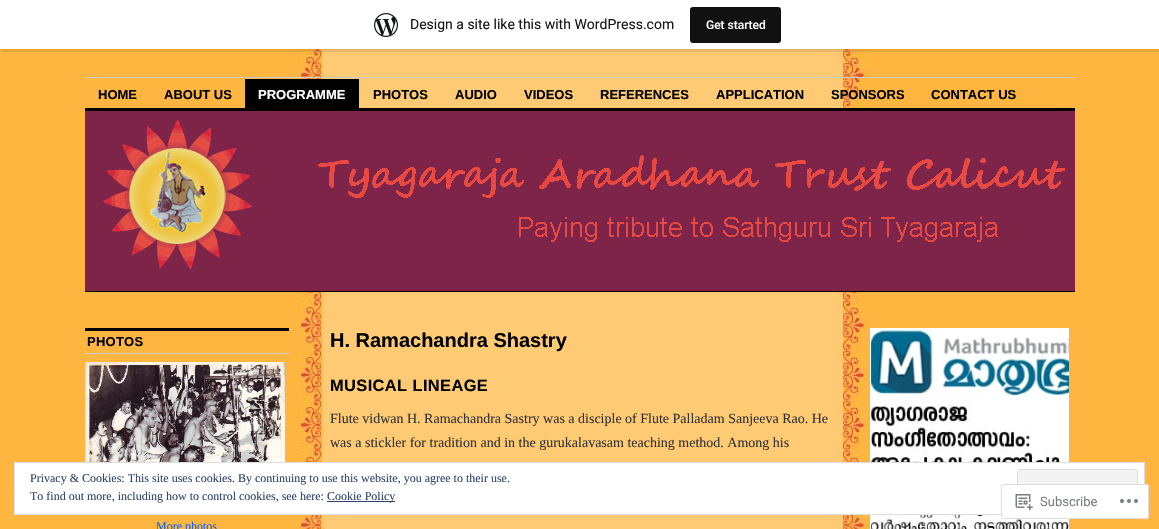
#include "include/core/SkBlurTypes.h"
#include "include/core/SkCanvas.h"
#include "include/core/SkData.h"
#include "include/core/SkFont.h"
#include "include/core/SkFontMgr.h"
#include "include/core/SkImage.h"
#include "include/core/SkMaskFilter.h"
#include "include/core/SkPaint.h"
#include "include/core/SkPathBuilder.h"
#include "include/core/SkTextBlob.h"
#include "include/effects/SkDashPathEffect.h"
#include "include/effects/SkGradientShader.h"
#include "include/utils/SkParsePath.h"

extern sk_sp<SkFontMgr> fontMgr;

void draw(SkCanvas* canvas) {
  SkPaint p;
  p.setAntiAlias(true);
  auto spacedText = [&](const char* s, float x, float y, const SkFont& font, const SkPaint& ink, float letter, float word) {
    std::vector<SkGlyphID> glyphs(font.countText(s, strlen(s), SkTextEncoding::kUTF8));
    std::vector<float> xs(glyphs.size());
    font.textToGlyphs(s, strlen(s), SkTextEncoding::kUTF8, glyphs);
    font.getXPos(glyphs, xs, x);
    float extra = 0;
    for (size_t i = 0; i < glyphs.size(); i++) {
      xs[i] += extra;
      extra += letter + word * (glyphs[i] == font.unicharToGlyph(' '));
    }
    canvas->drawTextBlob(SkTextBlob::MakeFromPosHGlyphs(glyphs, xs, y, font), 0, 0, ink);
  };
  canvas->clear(SkColorSetRGB(255, 182, 64));
  canvas->drawImageRect(SkImages::DeferredFromEncodedData(SkData::MakeFromFileName("images/1.png")), SkRect::MakeLTRB(293, 49, 869, 529), SkSamplingOptions());
  p.setColor(SkColorSetARGB(13, 0, 0, 0));
  p.setMaskFilter(SkMaskFilter::MakeBlur(kNormal_SkBlurStyle, 1));
  canvas->drawRect(SkRect::MakeLTRB(0, 1, 1159, 50), p);
  p.setMaskFilter(nullptr);
  p.setColor(SkColorSetARGB(20, 0, 0, 0));
  canvas->drawPath(SkPathBuilder().moveTo(1, 49).lineTo(1, 52).lineTo(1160, 52).lineTo(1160, 3).lineTo(1159, 3).lineTo(1159, 49).close().detach(), p);
  p.setColor(SK_ColorWHITE);
  canvas->drawRect(SkRect::MakeLTRB(0, 0, 1159, 49), p);
  canvas->drawImageRect(SkImages::DeferredFromEncodedData(SkData::MakeFromFileName("images/2.png")), SkRect::MakeLTRB(374, 13, 398, 37), SkSamplingOptions());
  p.setColor(SkColorSetRGB(17, 17, 17));
  canvas->drawRoundRect(SkRect::MakeLTRB(690, 7, 781, 43), 3, 3, p);
  p.setColor(SkColorSetRGB(204, 204, 204));
  canvas->drawRect(SkRect::MakeLTRB(85, 77, 1075, 78), p);
  p.setColor(SK_ColorBLACK);
  canvas->drawRect(SkRect::MakeLTRB(245, 79, 359, 108), p);
  canvas->drawRect(SkRect::MakeLTRB(85, 108, 1075, 111), p);
  canvas->drawImageRect(SkImages::DeferredFromEncodedData(SkData::MakeFromFileName("images/3.png")), SkRect::MakeLTRB(85, 111, 1075, 291), SkSamplingOptions());
  canvas->drawRect(SkRect::MakeLTRB(85, 291, 1075, 292), p);
  canvas->drawRect(SkRect::MakeLTRB(85, 328, 289, 331), p);
  p.setColor(SkColorSetRGB(204, 204, 204));
  canvas->drawRect(SkRect::MakeLTRB(85, 353, 289, 354), p);
  canvas->drawImageRect(SkImages::DeferredFromEncodedData(SkData::MakeFromFileName("images/4.png")), SkRect::MakeLTRB(85, 362, 285, 462), SkSamplingOptions());
  canvas->drawImageRect(SkImages::DeferredFromEncodedData(SkData::MakeFromFileName("images/5.png")), SkRect::MakeLTRB(870, 328, 1069, 529), SkSamplingOptions());
  p.setColor(SK_ColorWHITE);
  canvas->drawRect(SkRect::MakeLTRB(14.5f, 462.5f, 1144.5f, 514.5f), p);
  p.setStyle(SkPaint::kStroke_Style);
  p.setStrokeWidth(1);
  p.setColor(SkColorSetRGB(222, 222, 222));
  canvas->drawRect(SkRect::MakeLTRB(14.5f, 462.5f, 1144.5f, 514.5f), p);
  p.setStyle(SkPaint::kFill_Style);
  p.setColor(SkColorSetRGB(243, 243, 243));
  canvas->drawRoundRect(SkRect::MakeLTRB(1017.5f, 469.5f, 1137.5f, 507.5f), 2.5f, 2.5f, p);
  p.setStyle(SkPaint::kStroke_Style);
  p.setColor(SkColorSetRGB(222, 222, 222));
  canvas->drawRoundRect(SkRect::MakeLTRB(1017.5f, 469.5f, 1137.5f, 507.5f), 2.5f, 2.5f, p);
  p.setStyle(SkPaint::kFill_Style);
  p.setColor(SkColorSetRGB(46, 68, 103));
  canvas->drawRect(SkRect::MakeLTRB(327, 501, 395, 502), p);
  p.setColor(SkColorSetARGB(250, 255, 255, 255));
  canvas->drawRoundRect(SkRect::MakeLTRB(1001, 484, 1149, 519), 3, 3, p);
  p.setStyle(SkPaint::kStroke_Style);
  p.setColor(SkColorSetARGB(250, 220, 220, 222));
  canvas->drawRoundRect(SkRect::MakeLTRB(1001.5f, 484.5f, 1148.5f, 518.5f), 2.5f, 2.5f, p);
  canvas->drawImageRect(SkImages::DeferredFromEncodedData(SkData::MakeFromFileName("images/6.png")), SkRect::MakeLTRB(1015, 494, 1033, 511), SkSamplingOptions());
  canvas->drawImageRect(SkImages::DeferredFromEncodedData(SkData::MakeFromFileName("images/7.png")), SkRect::MakeLTRB(1120, 499, 1138, 503), SkSamplingOptions());
  SkFont font1(fontMgr->matchFamilyStyle("Roboto", SkFontStyle::Normal()), 14);
  font1.setSubpixel(true);
  p.setStyle(SkPaint::kFill_Style);
  p.setColor(SkColorSetRGB(23, 23, 23));
  canvas->drawString("Design a site like this with WordPress.com", 410, 29, font1, p);
  SkFont font2(fontMgr->matchFamilyStyle("Roboto", SkFontStyle(500, SkFontStyle::kNormal_Width, SkFontStyle::kUpright_Slant)), 12);
  font2.setSubpixel(true);
  p.setColor(SkColorSetRGB(246, 247, 247));
  canvas->drawString("Get started", 706, 29, font2, p);
  SkFont font3(fontMgr->matchFamilyStyle("Liberation Sans", SkFontStyle::Bold()), 13);
  font3.setSubpixel(true);
  p.setColor(SK_ColorBLACK);
  canvas->drawString("HOME", 98, 99, font3, p);
  canvas->drawString("ABOUT US", 164, 99, font3, p);
  p.setColor(SK_ColorWHITE);
  canvas->drawString("PROGRAMME", 258, 99, font3, p);
  p.setColor(SK_ColorBLACK);
  canvas->drawString("PHOTOS", 373, 99, font3, p);
  canvas->drawString("AUDIO", 455, 99, font3, p);
  canvas->drawString("VIDEOS", 524, 99, font3, p);
  canvas->drawString("REFERENCES", 600, 99, font3, p);
  canvas->drawString("APPLICATION", 716, 99, font3, p);
  canvas->drawString("SPONSORS", 831, 99, font3, p);
  canvas->drawString("CONTACT US", 931, 99, font3, p);
  spacedText("PHOTOS", 87, 346, font3, p, 0.25f, 0);
  SkFont font4(fontMgr->matchFamilyStyle("Liberation Serif", SkFontStyle::Normal()), 12);
  font4.setSubpixel(true);
  p.setColor(SkColorSetRGB(0, 96, 255));
  canvas->drawString("More photos", 156, 530, font4, p);
  SkFont font5(fontMgr->matchFamilyStyle("Liberation Sans", SkFontStyle::Bold()), 20);
  font5.setSubpixel(true);
  p.setColor(SK_ColorBLACK);
  canvas->drawString("H. Ramachandra Shastry", 330, 347, font5, p);
  SkFont font6(fontMgr->matchFamilyStyle("Liberation Sans", SkFontStyle::Bold()), 16.4f);
  font6.setSubpixel(true);
  spacedText("MUSICAL LINEAGE", 330, 391, font6, p, 0.4f, 0);
  SkFont font7(fontMgr->matchFamilyStyle("Liberation Serif", SkFontStyle::Normal()), 14);
  font7.setSubpixel(true);
  p.setColor(SkColorSetRGB(51, 51, 51));
  canvas->drawString("Flute vidwan H. Ramachandra Sastry was a disciple of Flute Palladam Sanjeeva Rao. He", 330, 423, font7, p);
  canvas->drawString("was a stickler for tradition and in the gurukalavasam teaching method. Among his", 330, 447, font7, p);
  p.setColor(SkColorSetRGB(46, 68, 103));
  canvas->drawString("Privacy & Cookies: This site uses cookies. By continuing to use this website, you agree to their use.", 30, 482, font4, p);
  canvas->drawString("To find out more, including how to control cookies, see here:", 30, 500, font4, p);
  canvas->drawString("Cookie Policy", 327, 500, font4, p);
  SkFont font8(fontMgr->matchFamilyStyle("Roboto", SkFontStyle::Normal()), 13);
  font8.setSubpixel(true);
  p.setColor(SkColorSetRGB(122, 126, 132));
  canvas->drawString("Subscribe", 1040, 506, font8, p);
}
